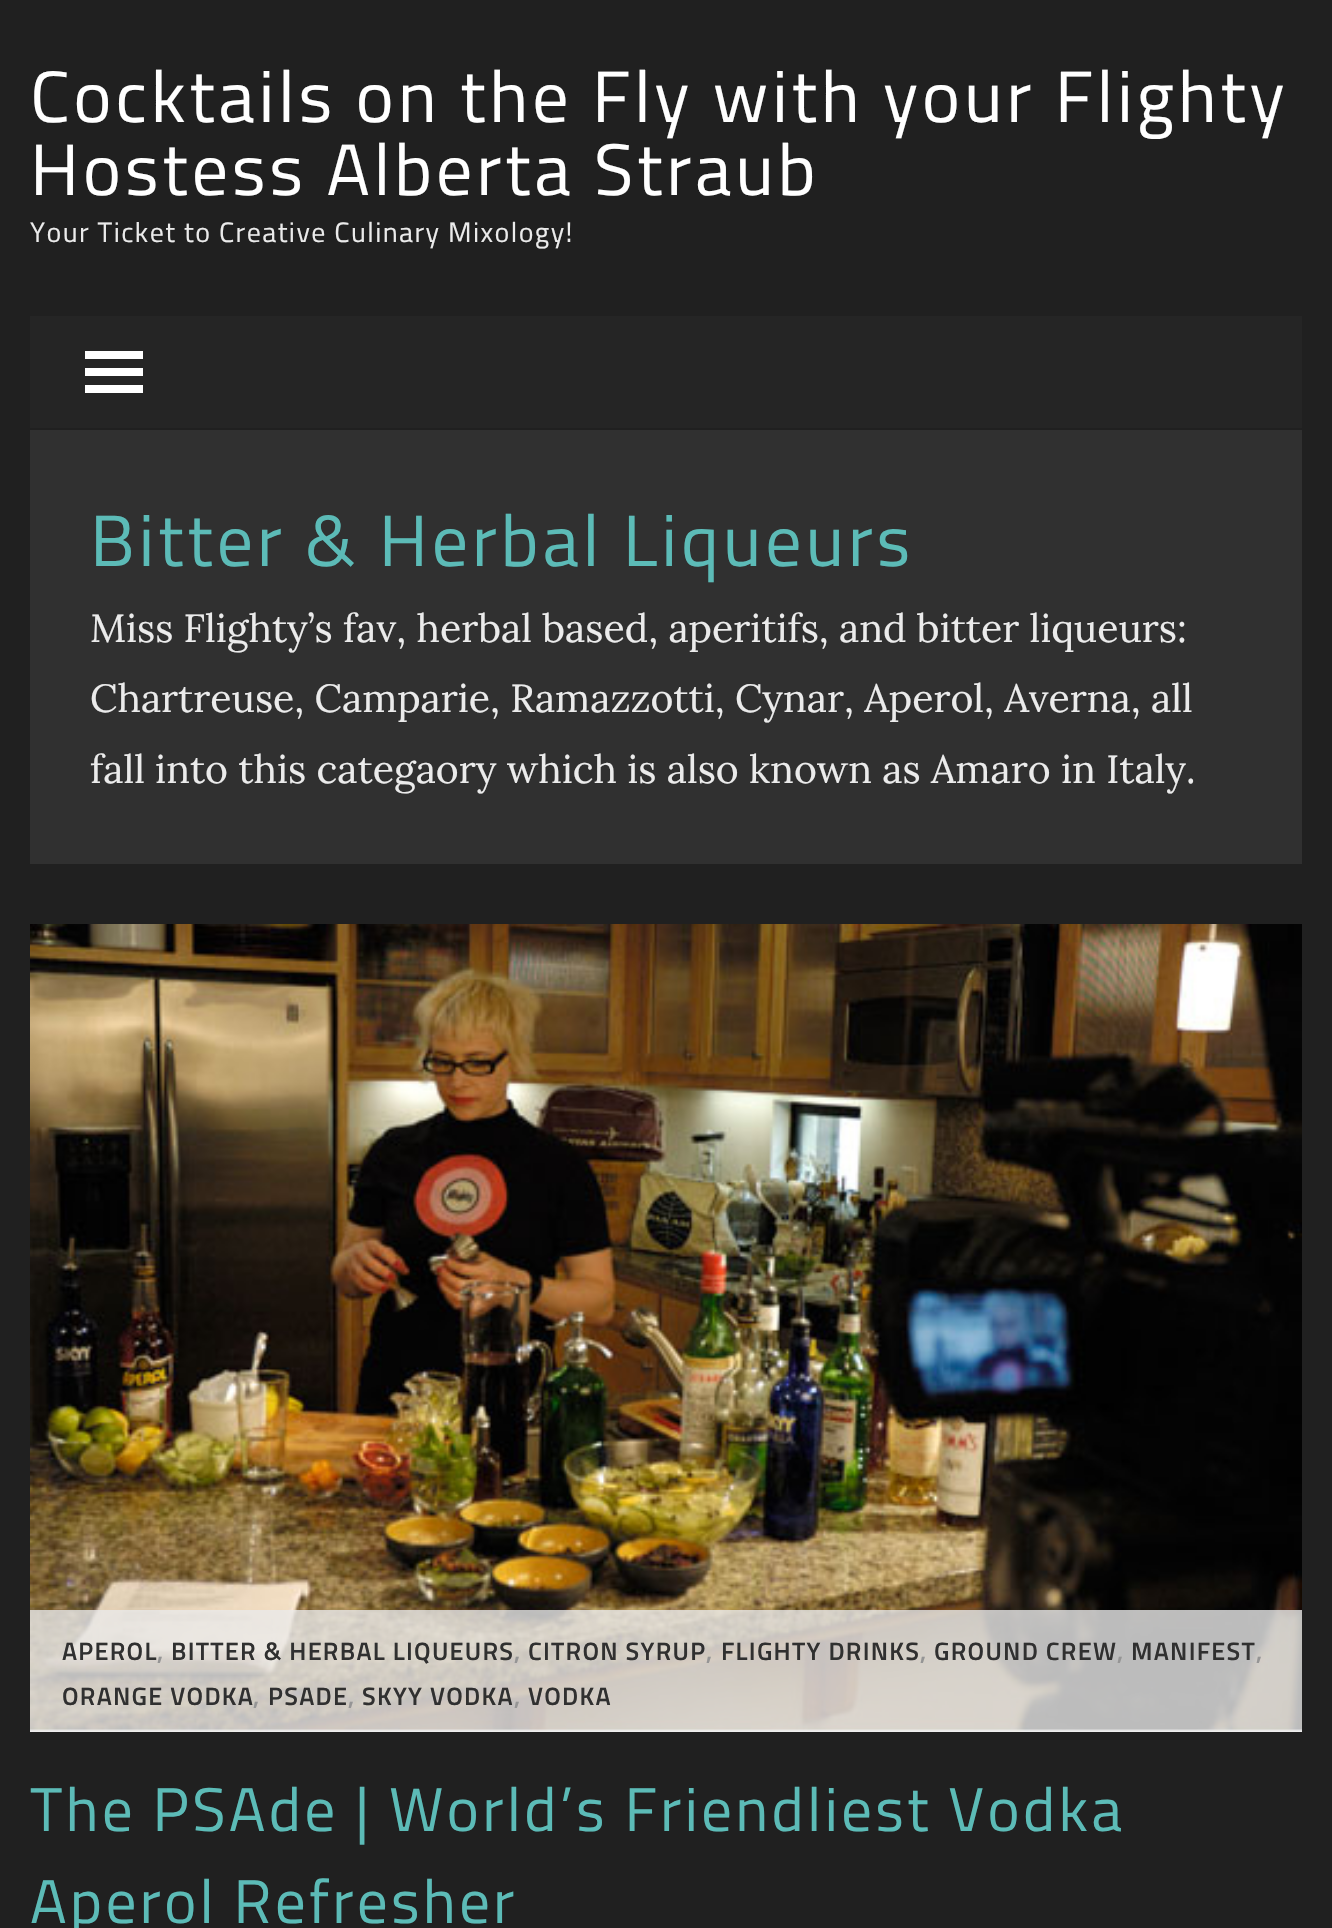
#include "include/core/SkBlurTypes.h"
#include "include/core/SkCanvas.h"
#include "include/core/SkData.h"
#include "include/core/SkFont.h"
#include "include/core/SkFontMgr.h"
#include "include/core/SkImage.h"
#include "include/core/SkMaskFilter.h"
#include "include/core/SkPaint.h"
#include "include/core/SkPathBuilder.h"
#include "include/core/SkTextBlob.h"
#include "include/effects/SkDashPathEffect.h"
#include "include/effects/SkGradientShader.h"
#include "include/utils/SkParsePath.h"

extern sk_sp<SkFontMgr> fontMgr;

void draw(SkCanvas* canvas) {
  SkPaint p;
  p.setAntiAlias(true);
  auto spacedText = [&](const char* s, float x, float y, const SkFont& font, const SkPaint& ink, float letter, float word) {
    std::vector<SkGlyphID> glyphs(font.countText(s, strlen(s), SkTextEncoding::kUTF8));
    std::vector<float> xs(glyphs.size());
    font.textToGlyphs(s, strlen(s), SkTextEncoding::kUTF8, glyphs);
    font.getXPos(glyphs, xs, x);
    float extra = 0;
    for (size_t i = 0; i < glyphs.size(); i++) {
      xs[i] += extra;
      extra += letter + word * (glyphs[i] == font.unicharToGlyph(' '));
    }
    canvas->drawTextBlob(SkTextBlob::MakeFromPosHGlyphs(glyphs, xs, y, font), 0, 0, ink);
  };
  canvas->clear(SkColorSetRGB(32, 32, 32));
  p.setColor(SkColorSetRGB(37, 37, 37));
  canvas->drawRect(SkRect::MakeLTRB(30, 316, 1302, 428), p);
  p.setColor(SK_ColorWHITE);
  canvas->drawPath(SkPathBuilder().moveTo(85, 393).lineTo(143, 393).lineTo(143, 385).lineTo(85, 385).close().moveTo(85, 351).lineTo(85, 359).lineTo(143, 359).lineTo(143, 351).close().moveTo(85, 376).lineTo(143, 376).lineTo(143, 368).lineTo(85, 368).close().detach(), p);
  p.setColor(SkColorSetRGB(48, 48, 48));
  canvas->drawRect(SkRect::MakeLTRB(30, 430, 1302, 864), p);
  canvas->drawImageRect(SkImages::DeferredFromEncodedData(SkData::MakeFromFileName("images/1.png")), SkRect::MakeLTRB(30, 924, 1302, 1732), SkSamplingOptions());
  p.setColor(SkColorSetARGB(204, 234, 234, 234));
  canvas->drawRect(SkRect::MakeLTRB(30, 1610, 1302, 1732), p);
  SkFont font1(fontMgr->matchFamilyStyle("Titillium Web", SkFontStyle::Normal()), 72.75f);
  font1.setSubpixel(true);
  p.setColor(SK_ColorWHITE);
  spacedText("Cocktails on the Fly with your Flighty", 30, 122, font1, p, 3.65f, 0);
  spacedText("Hostess Alberta Straub", 30, 195, font1, p, 3.65f, 0);
  SkFont font2(fontMgr->matchFamilyStyle("Titillium Web", SkFontStyle::Normal()), 28);
  font2.setSubpixel(true);
  p.setColor(SkColorSetRGB(235, 235, 235));
  spacedText("Your Ticket to Creative Culinary Mixology!", 30, 242, font2, p, 1.4f, 0);
  p.setColor(SkColorSetRGB(92, 187, 183));
  spacedText("Bitter & Herbal Liqueurs", 90, 566, font1, p, 3.65f, 0);
  SkFont font3(fontMgr->matchFamilyStyle("Lora", SkFontStyle::Normal()), 39.2f);
  font3.setSubpixel(true);
  p.setColor(SkColorSetRGB(235, 235, 235));
  canvas->drawString("Miss Flighty’s fav, herbal based, aperitifs, and bitter liqueurs:", 90, 642, font3, p);
  canvas->drawString("Chartreuse, Camparie, Ramazzotti, Cynar, Aperol, Averna, all", 90, 712, font3, p);
  canvas->drawString("fall into this categaory which is also known as Amaro in Italy.", 90, 783, font3, p);
  SkFont font4(fontMgr->matchFamilyStyle("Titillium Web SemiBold", SkFontStyle(600, SkFontStyle::kNormal_Width, SkFontStyle::kUpright_Slant)), 25.25f);
  font4.setSubpixel(true);
  p.setColor(SkColorSetRGB(48, 48, 48));
  spacedText("APEROL", 62, 1660, font4, p, 1.25f, 0);
  p.setColor(SkColorSetRGB(149, 149, 149));
  spacedText(",", 157, 1660, font4, p, 1.25f, 0);
  p.setColor(SkColorSetRGB(48, 48, 48));
  spacedText("BITTER & HERBAL LIQUEURS", 171, 1660, font4, p, 1.25f, 0);
  p.setColor(SkColorSetRGB(149, 149, 149));
  spacedText(",", 514, 1660, font4, p, 1.25f, 0);
  p.setColor(SkColorSetRGB(48, 48, 48));
  spacedText("CITRON SYRUP", 528, 1660, font4, p, 1.25f, 0);
  p.setColor(SkColorSetRGB(149, 149, 149));
  spacedText(",", 706, 1660, font4, p, 1.25f, 0);
  p.setColor(SkColorSetRGB(48, 48, 48));
  spacedText("FLIGHTY DRINKS", 721, 1660, font4, p, 1.25f, 0);
  p.setColor(SkColorSetRGB(149, 149, 149));
  spacedText(",", 920, 1660, font4, p, 1.25f, 0);
  p.setColor(SkColorSetRGB(48, 48, 48));
  spacedText("GROUND CREW", 934, 1660, font4, p, 1.25f, 0);
  p.setColor(SkColorSetRGB(149, 149, 149));
  spacedText(",", 1117, 1660, font4, p, 1.25f, 0);
  p.setColor(SkColorSetRGB(48, 48, 48));
  spacedText("MANIFEST", 1131, 1660, font4, p, 1.25f, 0);
  p.setColor(SkColorSetRGB(149, 149, 149));
  spacedText(",", 1256, 1660, font4, p, 1.25f, 0);
  p.setColor(SkColorSetRGB(48, 48, 48));
  spacedText("ORANGE VODKA", 62, 1705, font4, p, 1.25f, 0);
  p.setColor(SkColorSetRGB(149, 149, 149));
  spacedText(",", 253, 1705, font4, p, 1.25f, 0);
  p.setColor(SkColorSetRGB(48, 48, 48));
  spacedText("PSADE", 268, 1705, font4, p, 1.25f, 0);
  p.setColor(SkColorSetRGB(149, 149, 149));
  spacedText(",", 348, 1705, font4, p, 1.25f, 0);
  p.setColor(SkColorSetRGB(48, 48, 48));
  spacedText("SKYY VODKA", 362, 1705, font4, p, 1.25f, 0);
  p.setColor(SkColorSetRGB(149, 149, 149));
  spacedText(",", 514, 1705, font4, p, 1.25f, 0);
  p.setColor(SkColorSetRGB(48, 48, 48));
  spacedText("VODKA", 528, 1705, font4, p, 1.25f, 0);
  SkFont font5(fontMgr->matchFamilyStyle("Titillium Web", SkFontStyle::Normal()), 61.6f);
  font5.setSubpixel(true);
  p.setColor(SkColorSetRGB(92, 187, 183));
  spacedText("The PSAde | World’s Friendliest Vodka", 30, 1831, font5, p, 3.1f, 0);
  spacedText("Aperol Refresher", 30, 1923, font5, p, 3.1f, 0);
}
